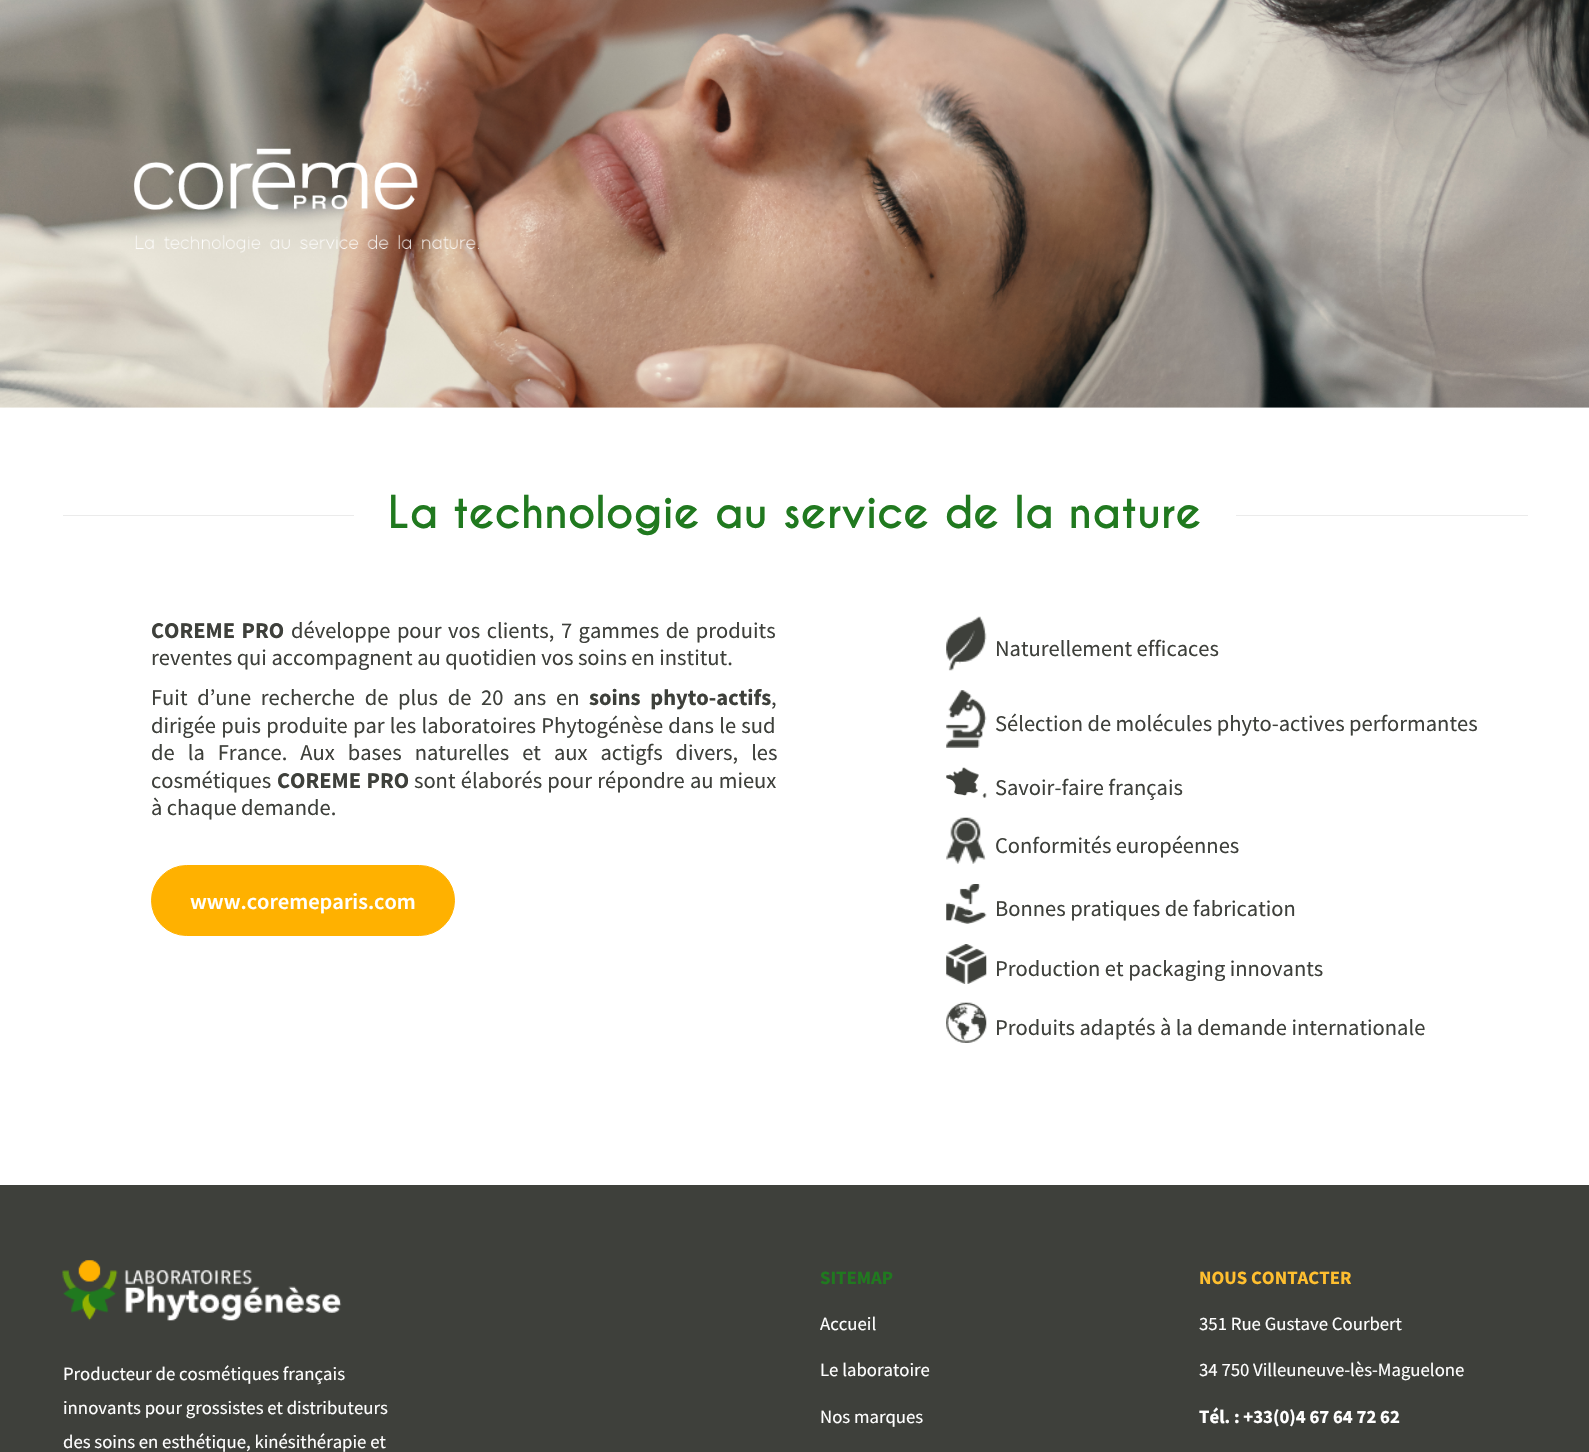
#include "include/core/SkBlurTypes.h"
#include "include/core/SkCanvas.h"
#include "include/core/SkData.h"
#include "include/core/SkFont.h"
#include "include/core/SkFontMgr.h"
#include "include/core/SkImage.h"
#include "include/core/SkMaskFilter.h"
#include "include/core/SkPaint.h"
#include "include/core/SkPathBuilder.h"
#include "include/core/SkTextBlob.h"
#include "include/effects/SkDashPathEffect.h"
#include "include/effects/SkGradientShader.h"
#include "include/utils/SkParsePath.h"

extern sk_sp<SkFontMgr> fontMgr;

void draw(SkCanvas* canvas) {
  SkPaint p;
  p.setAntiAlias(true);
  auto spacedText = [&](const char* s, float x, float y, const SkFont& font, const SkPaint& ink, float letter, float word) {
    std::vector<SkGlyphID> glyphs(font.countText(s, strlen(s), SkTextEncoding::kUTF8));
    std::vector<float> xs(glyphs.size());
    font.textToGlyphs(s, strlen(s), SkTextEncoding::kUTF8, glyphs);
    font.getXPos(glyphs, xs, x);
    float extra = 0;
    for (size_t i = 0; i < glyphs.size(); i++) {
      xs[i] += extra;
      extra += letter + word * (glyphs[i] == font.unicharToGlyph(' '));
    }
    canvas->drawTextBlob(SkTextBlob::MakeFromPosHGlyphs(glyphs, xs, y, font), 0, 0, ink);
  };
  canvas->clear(SK_ColorWHITE);
  canvas->drawImageRect(SkImages::DeferredFromEncodedData(SkData::MakeFromFileName("images/1.png")), SkRect::MakeLTRB(0, 0, 1589, 408), SkSamplingOptions());
  p.setColor(SkColorSetRGB(235, 235, 235));
  canvas->drawRect(SkRect::MakeLTRB(63, 515, 354, 516), p);
  canvas->drawRect(SkRect::MakeLTRB(1236, 515, 1528, 516), p);
  p.setColor(SkColorSetRGB(255, 177, 0));
  canvas->drawRoundRect(SkRect::MakeLTRB(151.5f, 865.5f, 454.5f, 935.5f), 35, 35, p);
  p.setStyle(SkPaint::kStroke_Style);
  p.setStrokeWidth(1);
  canvas->drawRoundRect(SkRect::MakeLTRB(151.5f, 865.5f, 454.5f, 935.5f), 35, 35, p);
  canvas->drawImageRect(SkImages::DeferredFromEncodedData(SkData::MakeFromFileName("images/2.png")), SkRect::MakeLTRB(946, 616, 987, 671), SkSamplingOptions());
  canvas->drawImageRect(SkImages::DeferredFromEncodedData(SkData::MakeFromFileName("images/3.png")), SkRect::MakeLTRB(946, 690, 987, 748), SkSamplingOptions());
  canvas->drawImageRect(SkImages::DeferredFromEncodedData(SkData::MakeFromFileName("images/4.png")), SkRect::MakeLTRB(946, 767, 987, 798), SkSamplingOptions());
  canvas->drawImageRect(SkImages::DeferredFromEncodedData(SkData::MakeFromFileName("images/5.png")), SkRect::MakeLTRB(946, 817, 986, 864), SkSamplingOptions());
  canvas->drawImageRect(SkImages::DeferredFromEncodedData(SkData::MakeFromFileName("images/6.png")), SkRect::MakeLTRB(946, 884, 987, 924), SkSamplingOptions());
  canvas->drawImageRect(SkImages::DeferredFromEncodedData(SkData::MakeFromFileName("images/7.png")), SkRect::MakeLTRB(946, 944, 987, 984), SkSamplingOptions());
  canvas->drawImageRect(SkImages::DeferredFromEncodedData(SkData::MakeFromFileName("images/8.png")), SkRect::MakeLTRB(946, 1002, 987, 1043), SkSamplingOptions());
  p.setStyle(SkPaint::kFill_Style);
  p.setColor(SkColorSetRGB(62, 64, 59));
  canvas->drawRect(SkRect::MakeLTRB(0, 1185, 1589, 1452), p);
  canvas->drawImageRect(SkImages::DeferredFromEncodedData(SkData::MakeFromFileName("images/9.png")), SkRect::MakeLTRB(62, 1260, 342, 1321), SkSamplingOptions());
  SkFont font1(fontMgr->matchFamilyStyle("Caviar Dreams", SkFontStyle::Bold()), 42.5f);
  font1.setSubpixel(true);
  p.setColor(SkColorSetRGB(32, 121, 31));
  canvas->drawString("La technologie au service de la nature", 388, 528, font1, p);
  SkFont font2(fontMgr->matchFamilyStyle("Source Sans Pro", SkFontStyle::Bold()), 22.5f);
  font2.setSubpixel(true);
  p.setColor(SkColorSetRGB(62, 64, 59));
  spacedText("COREME PRO", 151, 638, font2, p, 0, 2);
  SkFont font3(fontMgr->matchFamilyStyle("Source Sans Pro", SkFontStyle::Normal()), 22.5f);
  font3.setSubpixel(true);
  spacedText("développe pour vos clients, 7 gammes de produits", 291, 638, font3, p, 0, 2);
  canvas->drawString("reventes qui accompagnent au quotidien vos soins en institut.", 151, 665, font3, p);
  spacedText("Fuit d’une recherche de plus de 20 ans en", 151, 705, font3, p, 0, 5.25f);
  spacedText("soins phyto-actifs", 589, 705, font2, p, 0, 5.25f);
  canvas->drawString(",", 771, 705, font3, p);
  spacedText("dirigée puis produite par les laboratoires Phytogénèse dans le sud", 151, 733, font3, p, 0, 0.75f);
  spacedText("de la France. Aux bases naturelles et aux actigfs divers, les", 151, 760, font3, p, 0, 8.5f);
  canvas->drawString("cosmétiques", 151, 788, font3, p);
  spacedText("COREME PRO", 277, 788, font2, p, 0, 1);
  spacedText("sont élaborés pour répondre au mieux", 414, 788, font3, p, 0, 0.75f);
  canvas->drawString("à chaque demande.", 151, 815, font3, p);
  SkFont font4(fontMgr->matchFamilyStyle("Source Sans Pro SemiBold", SkFontStyle(600, SkFontStyle::kNormal_Width, SkFontStyle::kUpright_Slant)), 22.5f);
  font4.setSubpixel(true);
  p.setColor(SK_ColorWHITE);
  canvas->drawString("www.coremeparis.com", 190, 909, font4, p);
  p.setColor(SkColorSetRGB(62, 64, 59));
  canvas->drawString("Naturellement efficaces", 995, 656, font3, p);
  canvas->drawString("Sélection de molécules phyto-actives performantes", 995, 731, font3, p);
  canvas->drawString("Savoir-faire français", 995, 795, font3, p);
  canvas->drawString("Conformités européennes", 995, 853, font3, p);
  canvas->drawString("Bonnes pratiques de fabrication", 995, 916, font3, p);
  canvas->drawString("Production et packaging innovants", 995, 976, font3, p);
  canvas->drawString("Produits adaptés à la demande internationale", 995, 1035, font3, p);
  SkFont font5(fontMgr->matchFamilyStyle("Source Sans Pro", SkFontStyle::Normal()), 18.75f);
  font5.setSubpixel(true);
  p.setColor(SK_ColorWHITE);
  canvas->drawString("Producteur de cosmétiques français", 63, 1380, font5, p);
  canvas->drawString("innovants pour grossistes et distributeurs", 63, 1414, font5, p);
  canvas->drawString("des soins en esthétique, kinésithérapie et", 63, 1448, font5, p);
  SkFont font6(fontMgr->matchFamilyStyle("Source Sans Pro", SkFontStyle::Bold()), 18.75f);
  font6.setSubpixel(true);
  p.setColor(SkColorSetRGB(32, 121, 31));
  canvas->drawString("SITEMAP", 820, 1284, font6, p);
  p.setColor(SK_ColorWHITE);
  canvas->drawString("Accueil", 820, 1330, font5, p);
  canvas->drawString("Le laboratoire", 820, 1376, font5, p);
  canvas->drawString("Nos marques", 820, 1423, font5, p);
  p.setColor(SkColorSetRGB(255, 191, 47));
  canvas->drawString("NOUS CONTACTER", 1199, 1284, font6, p);
  p.setColor(SK_ColorWHITE);
  canvas->drawString("351 Rue Gustave Courbert", 1199, 1330, font5, p);
  canvas->drawString("34 750 Villeuneuve-lès-Maguelone", 1199, 1376, font5, p);
  canvas->drawString("Tél. : +33(0)4 67 64 72 62", 1199, 1423, font6, p);
}
